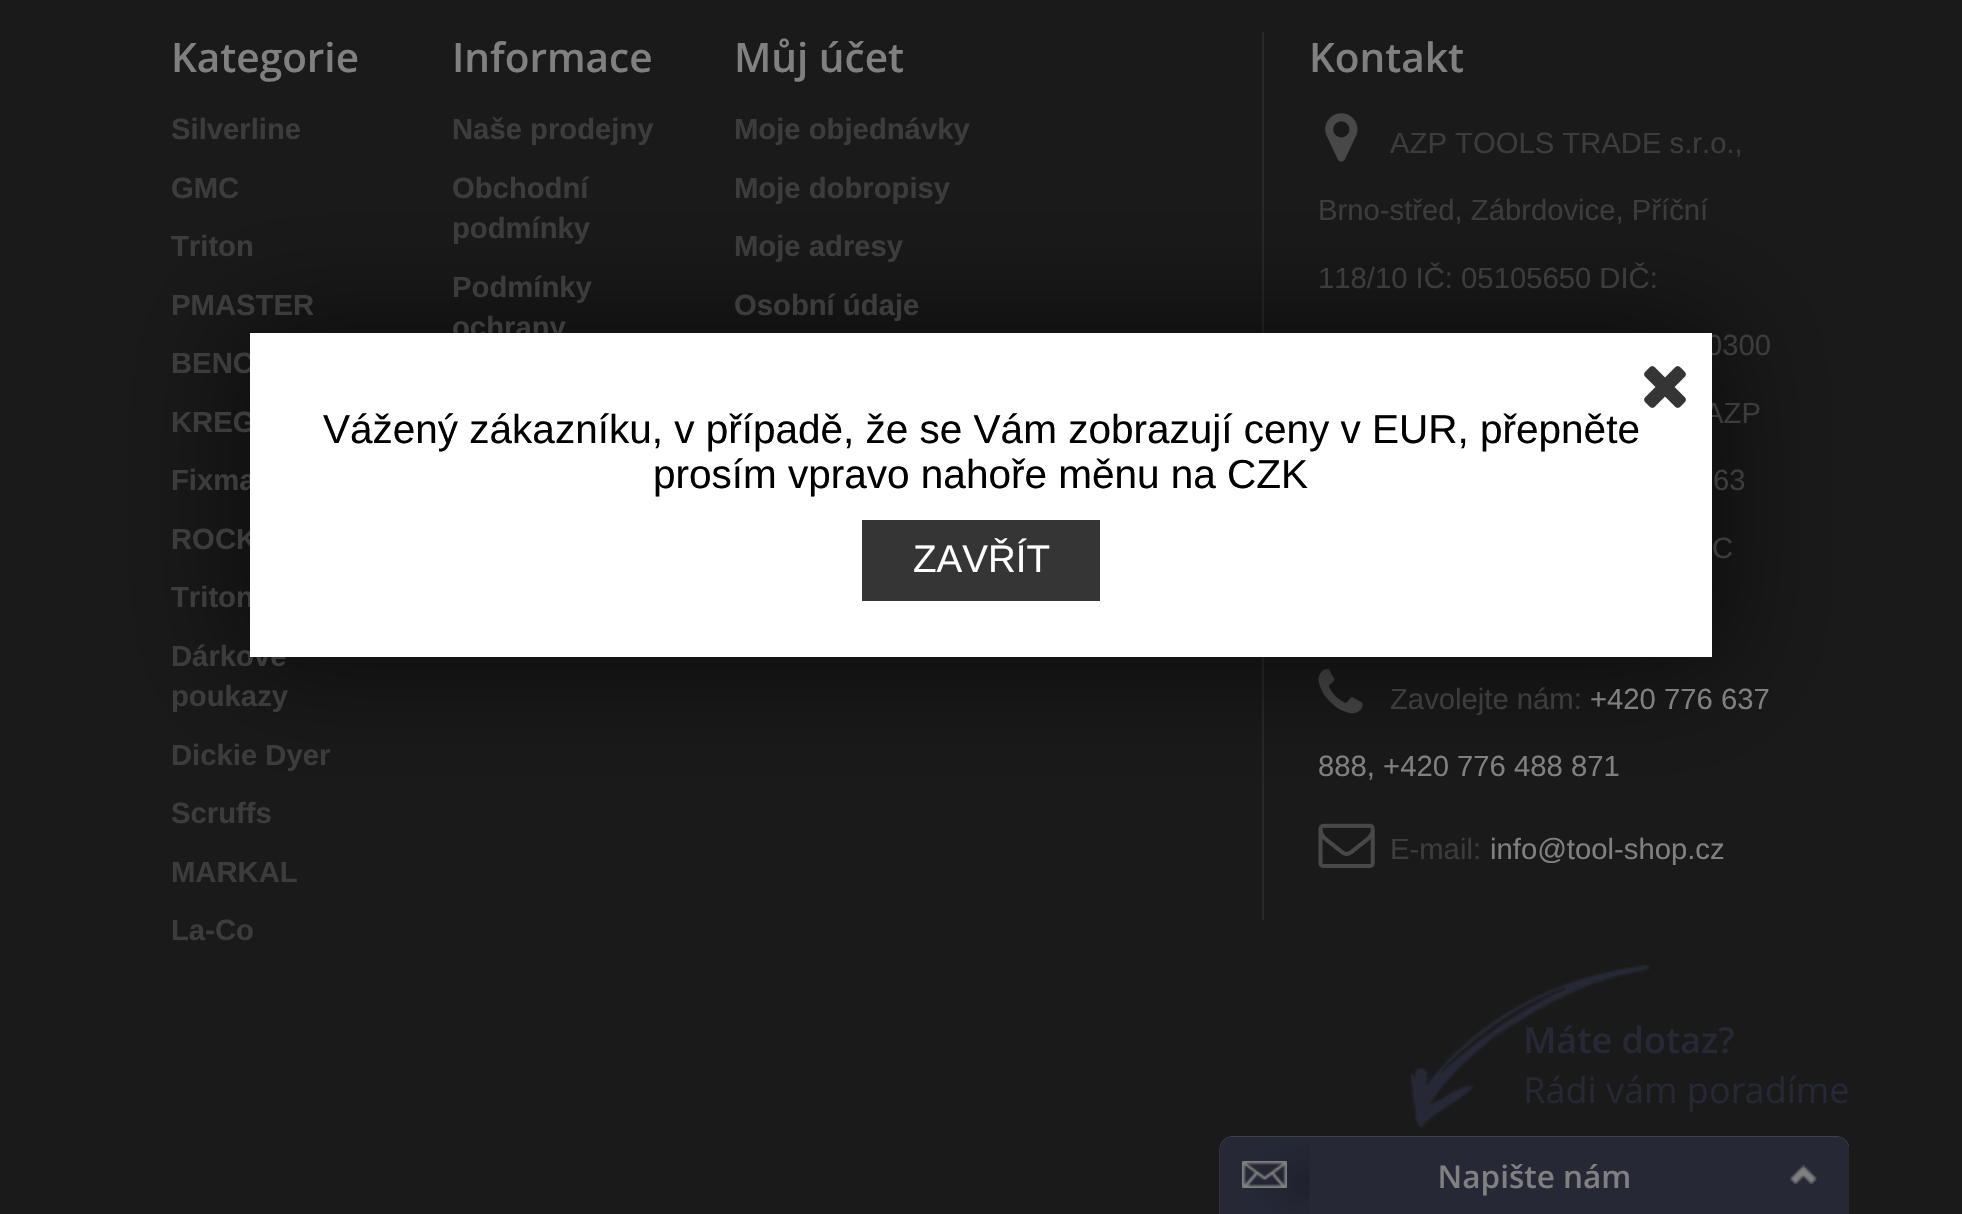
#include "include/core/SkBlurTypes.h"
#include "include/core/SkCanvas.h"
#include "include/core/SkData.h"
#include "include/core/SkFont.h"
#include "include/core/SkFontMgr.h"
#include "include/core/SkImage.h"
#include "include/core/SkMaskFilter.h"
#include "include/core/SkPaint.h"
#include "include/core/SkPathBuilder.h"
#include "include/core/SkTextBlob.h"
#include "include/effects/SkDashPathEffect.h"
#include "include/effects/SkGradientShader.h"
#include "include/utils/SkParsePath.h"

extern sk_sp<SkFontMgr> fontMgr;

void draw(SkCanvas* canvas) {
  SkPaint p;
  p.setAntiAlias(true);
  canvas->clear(SkColorSetRGB(26, 26, 26));
  p.setColor(SkColorSetRGB(41, 41, 41));
  canvas->drawRect(SkRect::MakeLTRB(1262, 32, 1264, 920), p);
  canvas->drawImageRect(SkImages::DeferredFromEncodedData(SkData::MakeFromFileName("images/1.png")), SkRect::MakeLTRB(1325, 113, 1358, 162), SkSamplingOptions());
  canvas->drawImageRect(SkImages::DeferredFromEncodedData(SkData::MakeFromFileName("images/2.png")), SkRect::MakeLTRB(1318, 669, 1363, 714), SkSamplingOptions());
  canvas->drawImageRect(SkImages::DeferredFromEncodedData(SkData::MakeFromFileName("images/3.png")), SkRect::MakeLTRB(1318, 823, 1375, 868), SkSamplingOptions());
  p.setColor(SkColorSetARGB(140, 0, 0, 0));
  p.setMaskFilter(SkMaskFilter::MakeBlur(kNormal_SkBlurStyle, 56));
  canvas->drawRect(SkRect::MakeLTRB(236, 320, 1726, 671), p);
  p.setMaskFilter(nullptr);
  canvas->drawImageRect(SkImages::DeferredFromEncodedData(SkData::MakeFromFileName("images/5.png")), SkRect::MakeLTRB(1410, 965, 1848, 1128), SkSamplingOptions());
  canvas->drawImageRect(SkImages::DeferredFromEncodedData(SkData::MakeFromFileName("images/6.png")), SkRect::MakeLTRB(1219, 1136, 1849, 1214), SkSamplingOptions());
  SkFont font1(fontMgr->matchFamilyStyle("Open Sans", SkFontStyle(600, SkFontStyle::kNormal_Width, SkFontStyle::kUpright_Slant)), 40.5f);
  font1.setSubpixel(true);
  p.setColor(SkColorSetRGB(128, 128, 128));
  canvas->drawString("Kategorie", 171, 72, font1, p);
  SkFont font2(fontMgr->matchFamilyStyle("Liberation Sans", SkFontStyle::Bold()), 29.25f);
  font2.setSubpixel(true);
  p.setColor(SkColorSetRGB(60, 60, 60));
  canvas->drawString("Silverline", 171, 139, font2, p);
  canvas->drawString("GMC", 171, 198, font2, p);
  canvas->drawString("Triton", 171, 256, font2, p);
  canvas->drawString("PMASTER", 171, 315, font2, p);
  canvas->drawString("BENC", 171, 373, font2, p);
  canvas->drawString("KREG", 171, 432, font2, p);
  canvas->drawString("Fixma", 171, 490, font2, p);
  canvas->drawString("ROCK", 171, 549, font2, p);
  canvas->drawString("Triton", 171, 607, font2, p);
  canvas->drawString("Dárkové", 171, 666, font2, p);
  canvas->drawString("poukazy", 171, 706, font2, p);
  canvas->drawString("Dickie Dyer", 171, 765, font2, p);
  canvas->drawString("Scruffs", 171, 823, font2, p);
  canvas->drawString("MARKAL", 171, 882, font2, p);
  canvas->drawString("La-Co", 171, 940, font2, p);
  p.setColor(SkColorSetRGB(128, 128, 128));
  canvas->drawString("Informace", 452, 72, font1, p);
  p.setColor(SkColorSetRGB(60, 60, 60));
  canvas->drawString("Naše prodejny", 452, 139, font2, p);
  canvas->drawString("Obchodní", 452, 198, font2, p);
  canvas->drawString("podmínky", 452, 238, font2, p);
  canvas->drawString("Podmínky", 452, 297, font2, p);
  canvas->drawString("ochrany", 452, 337, font2, p);
  p.setColor(SkColorSetRGB(128, 128, 128));
  canvas->drawString("Můj účet", 734, 72, font1, p);
  p.setColor(SkColorSetRGB(60, 60, 60));
  canvas->drawString("Moje objednávky", 734, 139, font2, p);
  canvas->drawString("Moje dobropisy", 734, 198, font2, p);
  canvas->drawString("Moje adresy", 734, 256, font2, p);
  canvas->drawString("Osobní údaje", 734, 315, font2, p);
  p.setColor(SkColorSetRGB(128, 128, 128));
  canvas->drawString("Kontakt", 1309, 72, font1, p);
  SkFont font3(fontMgr->matchFamilyStyle("Liberation Sans", SkFontStyle::Normal()), 29.25f);
  font3.setSubpixel(true);
  p.setColor(SkColorSetRGB(60, 60, 60));
  canvas->drawString("AZP TOOLS TRADE s.r.o.,", 1390, 153, font3, p);
  canvas->drawString("Brno-střed, Zábrdovice, Příční", 1318, 220, font3, p);
  canvas->drawString("118/10 IČ: 05105650 DIČ:", 1318, 288, font3, p);
  canvas->drawString("0300", 1706, 355, font3, p);
  canvas->drawString("AZP", 1704, 423, font3, p);
  canvas->drawString("63", 1713, 490, font3, p);
  canvas->drawString("C", 1712, 558, font3, p);
  canvas->drawString("Zavolejte nám:", 1390, 709, font3, p);
  p.setColor(SkColorSetRGB(128, 128, 128));
  canvas->drawString("+420 776 637", 1590, 709, font3, p);
  canvas->drawString("888, +420 776 488 871", 1318, 776, font3, p);
  p.setColor(SkColorSetRGB(60, 60, 60));
  canvas->drawString("E-mail:", 1390, 859, font3, p);
  p.setColor(SkColorSetRGB(128, 128, 128));
  canvas->drawString("info@tool-shop.cz", 1490, 859, font3, p);
  p.setColor(SK_ColorWHITE);
  canvas->drawRect(SkRect::MakeLTRB(250, 333, 1712, 657), p);
  canvas->drawImageRect(SkImages::DeferredFromEncodedData(SkData::MakeFromFileName("images/4.png")), SkRect::MakeLTRB(1644, 366, 1686, 408), SkSamplingOptions());
  SkFont font4(fontMgr->matchFamilyStyle("Liberation Sans", SkFontStyle::Normal()), 40.5f);
  font4.setSubpixel(true);
  p.setColor(SK_ColorBLACK);
  canvas->drawString("Vážený zákazníku, v případě, že se Vám zobrazují ceny v EUR, přepněte", 323, 443, font4, p);
  canvas->drawString("prosím vpravo nahoře měnu na CZK", 653, 488, font4, p);
  p.setColor(SkColorSetRGB(53, 53, 53));
  canvas->drawRect(SkRect::MakeLTRB(862, 520, 1100, 601), p);
  SkFont font5(fontMgr->matchFamilyStyle("Liberation Sans", SkFontStyle::Normal()), 38.5f);
  font5.setSubpixel(true);
  p.setColor(SK_ColorWHITE);
  canvas->drawString("ZAVŘÍT", 913, 572, font5, p);
}
